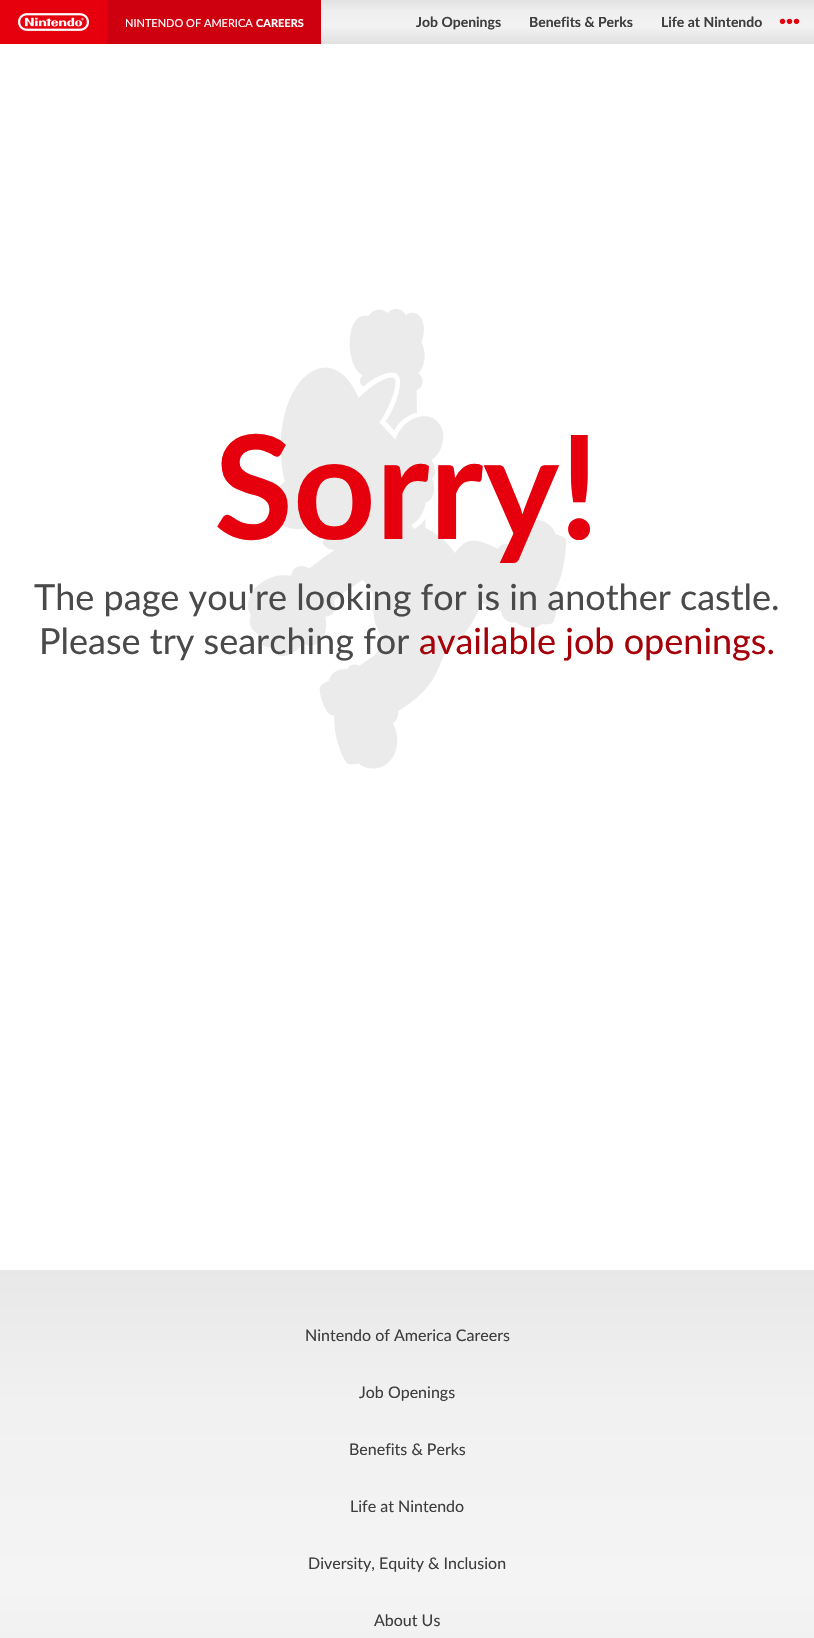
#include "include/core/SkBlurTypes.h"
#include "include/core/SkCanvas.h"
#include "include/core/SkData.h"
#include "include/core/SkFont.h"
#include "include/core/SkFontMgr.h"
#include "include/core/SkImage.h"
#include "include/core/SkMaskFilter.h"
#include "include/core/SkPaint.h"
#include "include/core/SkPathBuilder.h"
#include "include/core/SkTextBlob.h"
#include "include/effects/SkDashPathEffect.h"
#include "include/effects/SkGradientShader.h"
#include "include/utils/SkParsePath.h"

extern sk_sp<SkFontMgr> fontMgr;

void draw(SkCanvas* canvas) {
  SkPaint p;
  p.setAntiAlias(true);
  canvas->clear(SK_ColorWHITE);
  p.setColor(SkColorSetRGB(230, 0, 13));
  canvas->drawRect(SkRect::MakeLTRB(0, 0, 107, 44), p);
  canvas->drawImageRect(SkImages::DeferredFromEncodedData(SkData::MakeFromFileName("images/1.png")), SkRect::MakeLTRB(18, 13, 89, 31), SkSamplingOptions());
  p.setColor(SkColorSetRGB(206, 0, 16));
  canvas->drawRect(SkRect::MakeLTRB(107, 0, 321, 44), p);
  {
    const SkColor colors[] = {SkColorSetRGB(225, 225, 225), SkColorSetRGB(242, 242, 242), SkColorSetRGB(239, 239, 239), SkColorSetRGB(225, 225, 225)};
    const float stops[] = {0, 0.39f, 0.74f, 1};
    const SkPoint ends[] = {{568, 44}, {568, 0}};
    p.setShader(SkGradientShader::MakeLinear(ends, colors, stops, 4, SkTileMode::kClamp));
    p.setAlpha(255);
  }
  canvas->drawRect(SkRect::MakeLTRB(321, 0, 814, 44), p);
  canvas->drawImageRect(SkImages::DeferredFromEncodedData(SkData::MakeFromFileName("images/2.png")), SkRect::MakeLTRB(248, 309, 566, 769), SkSamplingOptions());
  {
    const SkColor colors[] = {SkColorSetRGB(232, 232, 232), SkColorSetRGB(244, 244, 244), SkColorSetRGB(241, 241, 241), SkColorSetRGB(232, 232, 232)};
    const float stops[] = {0, 0.39f, 0.74f, 1};
    const SkPoint ends[] = {{407, 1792}, {407, 1270}};
    p.setShader(SkGradientShader::MakeLinear(ends, colors, stops, 4, SkTileMode::kClamp));
    p.setAlpha(255);
  }
  canvas->drawRect(SkRect::MakeLTRB(0, 1270, 814, 1638), p);
  SkFont font1(fontMgr->matchFamilyStyle("Lato", SkFontStyle::Normal()), 11);
  font1.setSubpixel(true);
  p.setShader(nullptr);
  p.setColor(SK_ColorWHITE);
  canvas->drawString("NINTENDO OF AMERICA", 125, 27, font1, p);
  SkFont font2(fontMgr->matchFamilyStyle("Lato", SkFontStyle::Bold()), 11);
  font2.setSubpixel(true);
  canvas->drawString("CAREERS", 256, 27, font2, p);
  SkFont font3(fontMgr->matchFamilyStyle("Lato", SkFontStyle::Bold()), 14);
  font3.setSubpixel(true);
  p.setColor(SkColorSetRGB(62, 62, 62));
  canvas->drawString("Job Openings", 416, 27, font3, p);
  canvas->drawString("Benefits & Perks", 529, 27, font3, p);
  canvas->drawString("Life at Nintendo", 661, 27, font3, p);
  SkFont font4(fontMgr->matchFamilyStyle("Liberation Sans", SkFontStyle::Normal()), 20);
  font4.setSubpixel(true);
  p.setColor(SkColorSetRGB(230, 0, 13));
  canvas->drawString("•••", 779, 28, font4, p);
  SkFont font5(fontMgr->matchFamilyStyle("Lato", SkFontStyle::Bold()), 144);
  font5.setSubpixel(true);
  canvas->drawString("Sorry!", 214, 539, font5, p);
  SkFont font6(fontMgr->matchFamilyStyle("Lato", SkFontStyle::Normal()), 36);
  font6.setSubpixel(true);
  p.setColor(SkColorSetRGB(74, 74, 74));
  canvas->drawString("The page you're looking for is in another castle.", 34, 610, font6, p);
  canvas->drawString("Please try searching for", 39, 654, font6, p);
  p.setColor(SkColorSetRGB(166, 0, 9));
  canvas->drawString("available job openings.", 419, 654, font6, p);
  SkFont font7(fontMgr->matchFamilyStyle("Lato", SkFontStyle::Normal()), 16);
  font7.setSubpixel(true);
  p.setColor(SkColorSetRGB(62, 62, 62));
  canvas->drawString("Nintendo of America Careers", 305, 1341, font7, p);
  canvas->drawString("Job Openings", 359, 1398, font7, p);
  canvas->drawString("Benefits & Perks", 349, 1455, font7, p);
  canvas->drawString("Life at Nintendo", 350, 1512, font7, p);
  canvas->drawString("Diversity, Equity & Inclusion", 308, 1569, font7, p);
  canvas->drawString("About Us", 374, 1626, font7, p);
}
